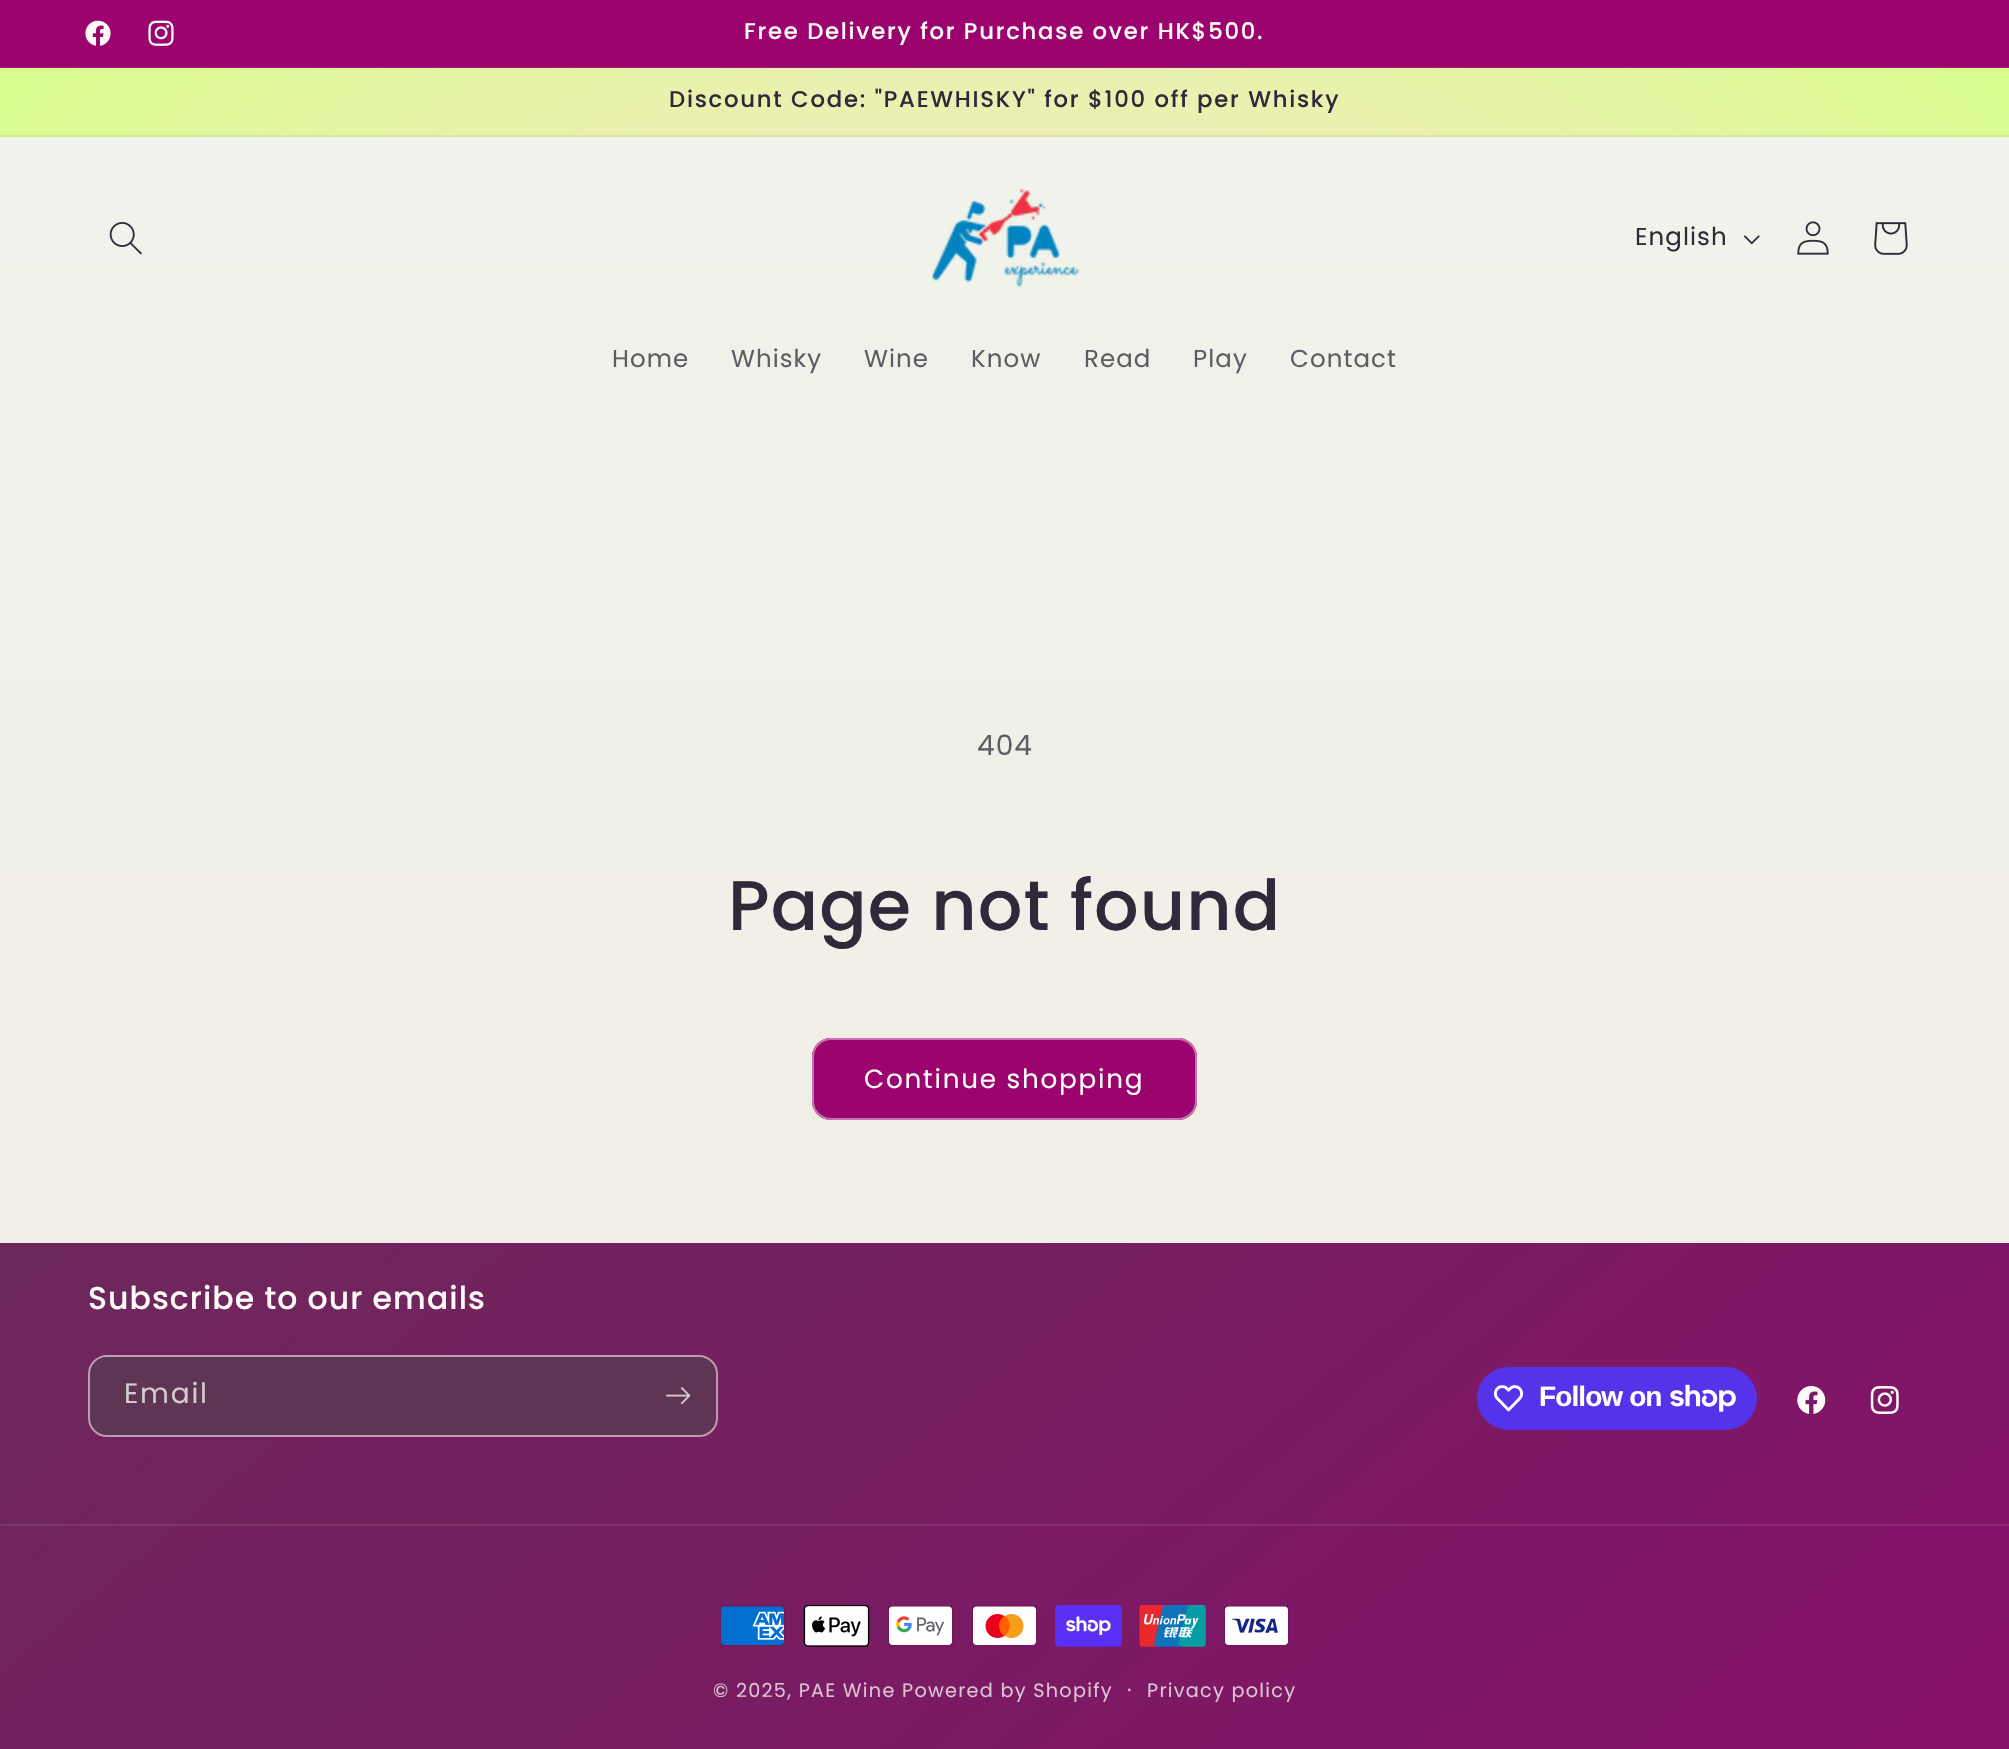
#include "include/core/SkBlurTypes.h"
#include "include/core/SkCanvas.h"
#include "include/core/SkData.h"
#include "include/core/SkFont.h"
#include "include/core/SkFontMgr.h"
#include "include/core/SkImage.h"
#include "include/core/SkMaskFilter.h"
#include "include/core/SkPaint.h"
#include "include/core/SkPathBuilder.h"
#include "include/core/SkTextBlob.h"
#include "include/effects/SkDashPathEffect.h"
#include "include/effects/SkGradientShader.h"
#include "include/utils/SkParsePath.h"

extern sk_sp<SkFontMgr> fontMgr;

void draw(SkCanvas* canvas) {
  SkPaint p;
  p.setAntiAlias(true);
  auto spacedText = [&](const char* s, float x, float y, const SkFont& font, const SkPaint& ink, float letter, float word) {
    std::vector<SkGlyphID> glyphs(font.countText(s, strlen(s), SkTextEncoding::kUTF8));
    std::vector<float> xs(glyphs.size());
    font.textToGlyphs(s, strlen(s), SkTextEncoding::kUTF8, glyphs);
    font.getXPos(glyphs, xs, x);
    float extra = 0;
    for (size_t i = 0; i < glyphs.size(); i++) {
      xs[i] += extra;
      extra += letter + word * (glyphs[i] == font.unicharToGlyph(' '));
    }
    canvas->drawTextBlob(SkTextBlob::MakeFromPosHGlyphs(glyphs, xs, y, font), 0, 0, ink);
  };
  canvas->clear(SK_ColorWHITE);
  {
    const SkColor colors[] = {SkColorSetRGB(240, 244, 236), SkColorSetRGB(241, 235, 226)};
    const float stops[] = {0, 1};
    const SkPoint ends[] = {{1004, 0}, {1005, 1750}};
    p.setShader(SkGradientShader::MakeLinear(ends, colors, stops, 2, SkTileMode::kClamp));
    p.setAlpha(255);
  }
  canvas->drawRect(SkRect::MakeLTRB(0, 137, 2009, 1243), p);
  p.setShader(nullptr);
  p.setColor(SkColorSetRGB(155, 4, 111));
  canvas->drawRect(SkRect::MakeLTRB(0, 0, 2009, 67), p);
  p.setColor(SkColorSetRGB(163, 24, 122));
  canvas->drawRect(SkRect::MakeLTRB(0, 67, 2009, 68), p);
  canvas->drawImageRect(SkImages::DeferredFromEncodedData(SkData::MakeFromFileName("images/1.png")), SkRect::MakeLTRB(85, 20, 111, 46), SkSamplingOptions());
  canvas->drawImageRect(SkImages::DeferredFromEncodedData(SkData::MakeFromFileName("images/2.png")), SkRect::MakeLTRB(148, 20, 174, 46), SkSamplingOptions());
  {
    const SkColor colors[] = {SkColorSetRGB(255, 229, 229), SkColorSetRGB(255, 224, 218), SkColorSetRGB(215, 255, 137)};
    const float stops[] = {0, 0.25f, 1};
    SkMatrix m = SkMatrix::Translate(1005, 875).preScale(1421, 1237);
    p.setShader(SkGradientShader::MakeRadial({0, 0}, 1, colors, stops, 3, SkTileMode::kClamp, 0, &m));
    p.setAlpha(255);
  }
  canvas->drawRect(SkRect::MakeLTRB(0, 68, 2009, 135), p);
  {
    const SkColor colors[] = {SkColorSetRGB(238, 214, 215), SkColorSetRGB(238, 209, 205), SkColorSetRGB(201, 238, 131)};
    const float stops[] = {0, 0.25f, 1};
    SkMatrix m = SkMatrix::Translate(1005, 875).preScale(1421, 1237);
    p.setShader(SkGradientShader::MakeRadial({0, 0}, 1, colors, stops, 3, SkTileMode::kClamp, 0, &m));
    p.setAlpha(255);
  }
  canvas->drawRect(SkRect::MakeLTRB(0, 135, 2009, 137), p);
  canvas->drawImageRect(SkImages::DeferredFromEncodedData(SkData::MakeFromFileName("images/3.png")), SkRect::MakeLTRB(109, 222, 142, 255), SkSamplingOptions());
  canvas->drawImageRect(SkImages::DeferredFromEncodedData(SkData::MakeFromFileName("images/4.png")), SkRect::MakeLTRB(931, 188, 1080, 288), SkSamplingOptions());
  canvas->drawImageRect(SkImages::DeferredFromEncodedData(SkData::MakeFromFileName("images/5.png")), SkRect::MakeLTRB(1743, 235, 1760, 245), SkSamplingOptions());
  canvas->drawImageRect(SkImages::DeferredFromEncodedData(SkData::MakeFromFileName("images/6.png")), SkRect::MakeLTRB(1797, 221, 1829, 255), SkSamplingOptions());
  canvas->drawImageRect(SkImages::DeferredFromEncodedData(SkData::MakeFromFileName("images/7.png")), SkRect::MakeLTRB(1874, 222, 1908, 255), SkSamplingOptions());
  p.setShader(nullptr);
  p.setColor(SkColorSetRGB(155, 4, 111));
  canvas->drawRoundRect(SkRect::MakeLTRB(812, 1038, 1197, 1120), 19, 19, p);
  p.setStyle(SkPaint::kStroke_Style);
  p.setStrokeWidth(2);
  canvas->drawRoundRect(SkRect::MakeLTRB(813, 1039, 1196, 1119), 18, 18, p);
  p.setColor(SkColorSetARGB(115, 253, 251, 247));
  canvas->drawRoundRect(SkRect::MakeLTRB(813, 1039, 1196, 1119), 18, 18, p);
  p.setStyle(SkPaint::kFill_Style);
  {
    const SkColor colors[] = {SkColorSetRGB(134, 16, 106), SkColorSetRGB(94, 54, 83)};
    const float stops[] = {0, 1};
    const SkPoint ends[] = {{1850, 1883}, {159, -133}};
    p.setShader(SkGradientShader::MakeLinear(ends, colors, stops, 2, SkTileMode::kClamp));
    p.setAlpha(255);
  }
  canvas->drawRect(SkRect::MakeLTRB(0, 1243, 2009, 1749), p);
  {
    const SkColor colors[] = {SkColorSetRGB(144, 35, 117), SkColorSetRGB(107, 70, 96)};
    const float stops[] = {0, 1};
    const SkPoint ends[] = {{1850, 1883}, {159, -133}};
    p.setShader(SkGradientShader::MakeLinear(ends, colors, stops, 2, SkTileMode::kClamp));
    p.setAlpha(255);
  }
  canvas->drawRect(SkRect::MakeLTRB(0, 1524, 2009, 1526), p);
  p.setShader(nullptr);
  p.setColor(SkColorSetRGB(94, 54, 83));
  canvas->drawRoundRect(SkRect::MakeLTRB(89, 1356, 716, 1435), 18, 18, p);
  p.setStyle(SkPaint::kStroke_Style);
  p.setColor(SkColorSetARGB(140, 253, 251, 247));
  canvas->drawRoundRect(SkRect::MakeLTRB(89, 1356, 717, 1436), 18, 18, p);
  canvas->drawImageRect(SkImages::DeferredFromEncodedData(SkData::MakeFromFileName("images/8.png")), SkRect::MakeLTRB(666, 1387, 691, 1404), SkSamplingOptions());
  p.setStyle(SkPaint::kFill_Style);
  p.setColor(SkColorSetRGB(84, 51, 235));
  canvas->drawRoundRect(SkRect::MakeLTRB(1477, 1367, 1757, 1430), 31.5f, 31.5f, p);
  canvas->drawImageRect(SkImages::DeferredFromEncodedData(SkData::MakeFromFileName("images/9.png")), SkRect::MakeLTRB(1493, 1385, 1524, 1412), SkSamplingOptions());
  canvas->drawImageRect(SkImages::DeferredFromEncodedData(SkData::MakeFromFileName("images/10.png")), SkRect::MakeLTRB(1670, 1384, 1736, 1412), SkSamplingOptions());
  canvas->drawImageRect(SkImages::DeferredFromEncodedData(SkData::MakeFromFileName("images/11.png")), SkRect::MakeLTRB(1797, 1386, 1826, 1414), SkSamplingOptions());
  canvas->drawImageRect(SkImages::DeferredFromEncodedData(SkData::MakeFromFileName("images/12.png")), SkRect::MakeLTRB(1870, 1386, 1899, 1414), SkSamplingOptions());
  canvas->drawImageRect(SkImages::DeferredFromEncodedData(SkData::MakeFromFileName("images/13.png")), SkRect::MakeLTRB(719, 1605, 786, 1647), SkSamplingOptions());
  canvas->drawImageRect(SkImages::DeferredFromEncodedData(SkData::MakeFromFileName("images/14.png")), SkRect::MakeLTRB(803, 1605, 870, 1647), SkSamplingOptions());
  canvas->drawImageRect(SkImages::DeferredFromEncodedData(SkData::MakeFromFileName("images/15.png")), SkRect::MakeLTRB(887, 1605, 954, 1647), SkSamplingOptions());
  canvas->drawImageRect(SkImages::DeferredFromEncodedData(SkData::MakeFromFileName("images/16.png")), SkRect::MakeLTRB(971, 1605, 1038, 1647), SkSamplingOptions());
  canvas->drawImageRect(SkImages::DeferredFromEncodedData(SkData::MakeFromFileName("images/17.png")), SkRect::MakeLTRB(1055, 1605, 1122, 1647), SkSamplingOptions());
  canvas->drawImageRect(SkImages::DeferredFromEncodedData(SkData::MakeFromFileName("images/18.png")), SkRect::MakeLTRB(1139, 1605, 1206, 1647), SkSamplingOptions());
  canvas->drawImageRect(SkImages::DeferredFromEncodedData(SkData::MakeFromFileName("images/19.png")), SkRect::MakeLTRB(1223, 1605, 1290, 1647), SkSamplingOptions());
  SkFont font1(fontMgr->matchFamilyStyle("Poppins", SkFontStyle(500, SkFontStyle::kNormal_Width, SkFontStyle::kUpright_Slant)), 22.75f);
  font1.setSubpixel(true);
  p.setColor(SkColorSetRGB(253, 251, 247));
  spacedText("Free Delivery for Purchase over HK$500.", 744, 39, font1, p, 1.75f, 0);
  p.setColor(SkColorSetRGB(46, 42, 57));
  spacedText("Discount Code: \"PAEWHISKY\" for $100 off per Whisky", 669, 107, font1, p, 1.75f, 0);
  SkFont font2(fontMgr->matchFamilyStyle("Poppins", SkFontStyle::Normal()), 24.5f);
  font2.setSubpixel(true);
  spacedText("English", 1635, 245, font2, p, 1.05f, 0);
  p.setColor(SkColorSetRGB(95, 92, 101));
  spacedText("Home", 612, 367, font2, p, 1.05f, 0);
  spacedText("Whisky", 731, 367, font2, p, 1.05f, 0);
  spacedText("Wine", 864, 367, font2, p, 1.05f, 0);
  spacedText("Know", 971, 367, font2, p, 1.05f, 0);
  spacedText("Read", 1084, 367, font2, p, 1.05f, 0);
  spacedText("Play", 1193, 367, font2, p, 1.05f, 0);
  spacedText("Contact", 1290, 367, font2, p, 1.05f, 0);
  SkFont font3(fontMgr->matchFamilyStyle("Poppins", SkFontStyle::Normal()), 28);
  font3.setSubpixel(true);
  spacedText("404", 977, 755, font3, p, 1.05f, 0);
  SkFont font4(fontMgr->matchFamilyStyle("Poppins", SkFontStyle(500, SkFontStyle::kNormal_Width, SkFontStyle::kUpright_Slant)), 70);
  font4.setSubpixel(true);
  p.setColor(SkColorSetRGB(46, 42, 57));
  spacedText("Page not found", 728, 930, font4, p, 1.05f, 0);
  SkFont font5(fontMgr->matchFamilyStyle("Poppins", SkFontStyle::Normal()), 26.25f);
  font5.setSubpixel(true);
  p.setColor(SkColorSetRGB(253, 251, 247));
  spacedText("Continue shopping", 864, 1088, font5, p, 1.75f, 0);
  SkFont font6(fontMgr->matchFamilyStyle("Poppins", SkFontStyle(500, SkFontStyle::kNormal_Width, SkFontStyle::kUpright_Slant)), 31.5f);
  font6.setSubpixel(true);
  spacedText("Subscribe to our emails", 88, 1309, font6, p, 1.05f, 0);
  p.setColor(SkColorSetRGB(213, 202, 206));
  spacedText("Email", 124, 1403, font3, p, 1.75f, 0);
  SkFont font7(fontMgr->matchFamilyStyle("Liberation Sans", SkFontStyle::Bold()), 28);
  font7.setSubpixel(true);
  p.setColor(SK_ColorWHITE);
  spacedText("Follow on", 1539, 1406, font7, p, -0.9f, 0);
  SkFont font8(fontMgr->matchFamilyStyle("Poppins", SkFontStyle::Normal()), 19.25f);
  font8.setSubpixel(true);
  p.setColor(SkColorSetRGB(220, 195, 210));
  spacedText("© 2025, PAE Wine", 713, 1697, font8, p, 1.25f, 0);
  spacedText("Powered by Shopify", 902, 1697, font8, p, 1.25f, 0);
  SkFont font9(fontMgr->matchFamilyStyle("Poppins", SkFontStyle::Normal()), 21);
  font9.setSubpixel(true);
  spacedText("·", 1127, 1697, font9, p, 1.25f, 0);
  spacedText("Privacy policy", 1147, 1697, font8, p, 1.25f, 0);
}
